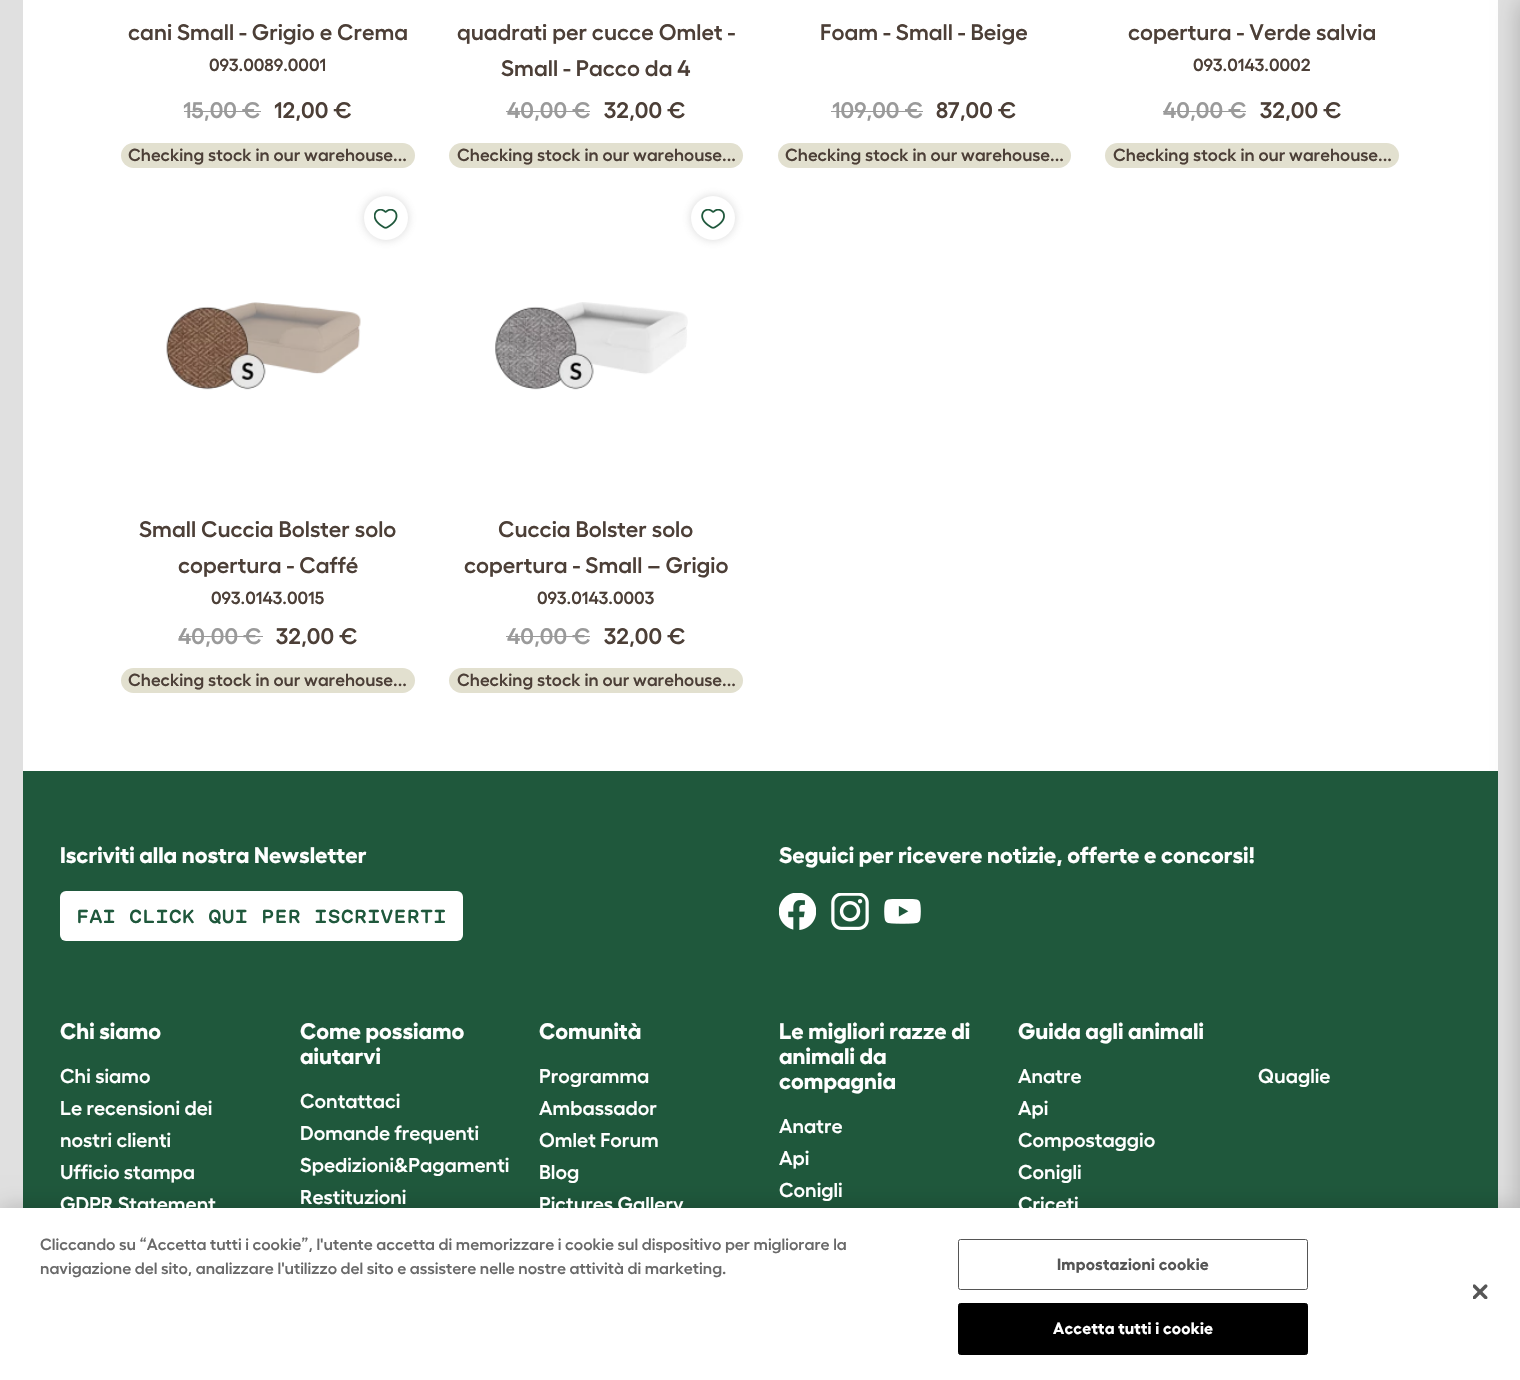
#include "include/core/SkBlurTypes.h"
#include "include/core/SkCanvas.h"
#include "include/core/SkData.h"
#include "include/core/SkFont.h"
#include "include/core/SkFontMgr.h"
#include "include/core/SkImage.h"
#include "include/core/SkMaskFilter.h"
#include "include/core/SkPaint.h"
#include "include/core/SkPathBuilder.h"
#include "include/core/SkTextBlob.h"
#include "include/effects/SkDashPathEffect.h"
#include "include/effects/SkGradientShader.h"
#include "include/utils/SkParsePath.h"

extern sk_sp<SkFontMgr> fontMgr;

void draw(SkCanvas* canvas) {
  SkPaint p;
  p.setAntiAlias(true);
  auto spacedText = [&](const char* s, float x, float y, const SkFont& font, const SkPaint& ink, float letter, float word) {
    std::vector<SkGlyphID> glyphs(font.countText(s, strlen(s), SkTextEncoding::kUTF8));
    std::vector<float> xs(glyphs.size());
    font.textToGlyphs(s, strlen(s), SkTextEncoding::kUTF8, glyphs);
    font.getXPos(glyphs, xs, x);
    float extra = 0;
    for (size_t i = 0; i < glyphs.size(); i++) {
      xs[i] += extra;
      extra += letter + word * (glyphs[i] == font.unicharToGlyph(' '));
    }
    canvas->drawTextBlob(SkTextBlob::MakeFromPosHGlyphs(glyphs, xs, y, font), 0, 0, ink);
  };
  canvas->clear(SkColorSetRGB(224, 224, 224));
  p.setColor(SK_ColorWHITE);
  canvas->drawRect(SkRect::MakeLTRB(23, 0, 1498, 771), p);
  p.setColor(SkColorSetRGB(154, 154, 154));
  canvas->drawRect(SkRect::MakeLTRB(184, 111, 261, 112), p);
  p.setColor(SkColorSetRGB(226, 224, 207));
  canvas->drawRoundRect(SkRect::MakeLTRB(121, 143, 415, 168), 12.5f, 12.5f, p);
  p.setColor(SkColorSetRGB(154, 154, 154));
  canvas->drawRect(SkRect::MakeLTRB(506, 111, 590, 112), p);
  p.setColor(SkColorSetRGB(226, 224, 207));
  canvas->drawRoundRect(SkRect::MakeLTRB(449, 143, 743, 168), 12.5f, 12.5f, p);
  p.setColor(SkColorSetRGB(154, 154, 154));
  canvas->drawRect(SkRect::MakeLTRB(831, 111, 923, 112), p);
  p.setColor(SkColorSetRGB(226, 224, 207));
  canvas->drawRoundRect(SkRect::MakeLTRB(778, 143, 1071, 168), 12.5f, 12.5f, p);
  p.setColor(SkColorSetRGB(154, 154, 154));
  canvas->drawRect(SkRect::MakeLTRB(1163, 111, 1246, 112), p);
  p.setColor(SkColorSetRGB(226, 224, 207));
  canvas->drawRoundRect(SkRect::MakeLTRB(1105, 143, 1399, 168), 12.5f, 12.5f, p);
  p.setColor(SkColorSetARGB(64, 95, 95, 95));
  p.setMaskFilter(SkMaskFilter::MakeBlur(kNormal_SkBlurStyle, 5));
  canvas->drawRoundRect(SkRect::MakeLTRB(364, 196, 408, 240), 22, 22, p);
  p.setMaskFilter(nullptr);
  p.setColor(SK_ColorWHITE);
  canvas->drawCircle(386, 218, 22, p);
  canvas->drawImageRect(SkImages::DeferredFromEncodedData(SkData::MakeFromFileName("images/1.png")), SkRect::MakeLTRB(374, 209, 398, 229), SkSamplingOptions());
  canvas->drawImageRect(SkImages::DeferredFromEncodedData(SkData::MakeFromFileName("images/2.png")), SkRect::MakeLTRB(166, 302, 361, 390), SkSamplingOptions());
  p.setColor(SkColorSetRGB(154, 154, 154));
  canvas->drawRect(SkRect::MakeLTRB(179, 636, 263, 637), p);
  p.setColor(SkColorSetRGB(226, 224, 207));
  canvas->drawRoundRect(SkRect::MakeLTRB(121, 668, 415, 693), 12.5f, 12.5f, p);
  p.setColor(SkColorSetARGB(64, 95, 95, 95));
  p.setMaskFilter(SkMaskFilter::MakeBlur(kNormal_SkBlurStyle, 5));
  canvas->drawRoundRect(SkRect::MakeLTRB(691, 196, 735, 240), 22, 22, p);
  p.setMaskFilter(nullptr);
  p.setColor(SK_ColorWHITE);
  canvas->drawCircle(713, 218, 22, p);
  canvas->drawImageRect(SkImages::DeferredFromEncodedData(SkData::MakeFromFileName("images/3.png")), SkRect::MakeLTRB(701, 209, 725, 229), SkSamplingOptions());
  canvas->drawImageRect(SkImages::DeferredFromEncodedData(SkData::MakeFromFileName("images/4.png")), SkRect::MakeLTRB(495, 302, 688, 390), SkSamplingOptions());
  p.setColor(SkColorSetRGB(154, 154, 154));
  canvas->drawRect(SkRect::MakeLTRB(506, 636, 590, 637), p);
  p.setColor(SkColorSetRGB(226, 224, 207));
  canvas->drawRoundRect(SkRect::MakeLTRB(449, 668, 743, 693), 12.5f, 12.5f, p);
  p.setColor(SkColorSetRGB(31, 88, 60));
  canvas->drawRect(SkRect::MakeLTRB(23, 771, 1498, 1208), p);
  p.setColor(SkColorSetARGB(51, 0, 0, 0));
  p.setMaskFilter(SkMaskFilter::MakeBlur(kNormal_SkBlurStyle, 12.5f));
  canvas->drawRect(SkRect::MakeLTRB(1518, 0, 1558, 1380), p);
  p.setMaskFilter(nullptr);
  p.setColor(SK_ColorWHITE);
  canvas->drawRoundRect(SkRect::MakeLTRB(60, 891, 463, 941), 6, 6, p);
  canvas->drawImageRect(SkImages::DeferredFromEncodedData(SkData::MakeFromFileName("images/5.png")), SkRect::MakeLTRB(779, 893, 816, 930), SkSamplingOptions());
  canvas->drawImageRect(SkImages::DeferredFromEncodedData(SkData::MakeFromFileName("images/6.png")), SkRect::MakeLTRB(831, 893, 869, 930), SkSamplingOptions());
  canvas->drawImageRect(SkImages::DeferredFromEncodedData(SkData::MakeFromFileName("images/7.png")), SkRect::MakeLTRB(884, 899, 921, 924), SkSamplingOptions());
  p.setColor(SkColorSetARGB(51, 0, 0, 0));
  p.setMaskFilter(SkMaskFilter::MakeBlur(kNormal_SkBlurStyle, 11));
  canvas->drawRect(SkRect::MakeLTRB(0, 1208, 1520, 1380), p);
  p.setMaskFilter(nullptr);
  p.setColor(SK_ColorWHITE);
  canvas->drawRect(SkRect::MakeLTRB(0, 1208, 1520, 1380), p);
  p.setStyle(SkPaint::kStroke_Style);
  p.setStrokeWidth(1);
  p.setColor(SkColorSetRGB(85, 85, 85));
  canvas->drawRoundRect(SkRect::MakeLTRB(958.5f, 1239.5f, 1307.5f, 1289.5f), 2, 2, p);
  p.setStyle(SkPaint::kFill_Style);
  p.setColor(SK_ColorBLACK);
  canvas->drawRoundRect(SkRect::MakeLTRB(958.5f, 1303.5f, 1307.5f, 1354.5f), 2, 2, p);
  p.setStyle(SkPaint::kStroke_Style);
  canvas->drawRoundRect(SkRect::MakeLTRB(958.5f, 1303.5f, 1307.5f, 1354.5f), 2, 2, p);
  canvas->drawImageRect(SkImages::DeferredFromEncodedData(SkData::MakeFromFileName("images/8.png")), SkRect::MakeLTRB(1473, 1284, 1488, 1299), SkSamplingOptions());
  SkFont font1(fontMgr->matchFamilyStyle("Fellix", SkFontStyle(600, SkFontStyle::kNormal_Width, SkFontStyle::kUpright_Slant)), 22.5f);
  font1.setSubpixel(true);
  p.setStyle(SkPaint::kFill_Style);
  p.setColor(SkColorSetRGB(76, 63, 55));
  canvas->drawString("cani Small - Grigio e Crema", 128, 40, font1, p);
  SkFont font2(fontMgr->matchFamilyStyle("Fellix", SkFontStyle(600, SkFontStyle::kNormal_Width, SkFontStyle::kUpright_Slant)), 17.5f);
  font2.setSubpixel(true);
  canvas->drawString("093.0089.0001", 209, 71, font2, p);
  p.setColor(SkColorSetRGB(154, 154, 154));
  canvas->drawString("15,00 €", 183, 118, font1, p);
  p.setColor(SkColorSetRGB(76, 63, 55));
  canvas->drawString("12,00 €", 274, 118, font1, p);
  canvas->drawString("Checking stock in our warehouse...", 128, 161, font2, p);
  canvas->drawString("quadrati per cucce Omlet -", 457, 40, font1, p);
  canvas->drawString("Small - Pacco da 4", 501, 76, font1, p);
  p.setColor(SkColorSetRGB(154, 154, 154));
  canvas->drawString("40,00 €", 507, 118, font1, p);
  p.setColor(SkColorSetRGB(76, 63, 55));
  canvas->drawString("32,00 €", 604, 118, font1, p);
  canvas->drawString("Checking stock in our warehouse...", 457, 161, font2, p);
  canvas->drawString("Foam - Small - Beige", 820, 40, font1, p);
  p.setColor(SkColorSetRGB(154, 154, 154));
  canvas->drawString("109,00 €", 832, 118, font1, p);
  p.setColor(SkColorSetRGB(76, 63, 55));
  canvas->drawString("87,00 €", 936, 118, font1, p);
  canvas->drawString("Checking stock in our warehouse...", 785, 161, font2, p);
  canvas->drawString("copertura - Verde salvia", 1128, 40, font1, p);
  canvas->drawString("093.0143.0002", 1193, 71, font2, p);
  p.setColor(SkColorSetRGB(154, 154, 154));
  canvas->drawString("40,00 €", 1163, 118, font1, p);
  p.setColor(SkColorSetRGB(76, 63, 55));
  canvas->drawString("32,00 €", 1260, 118, font1, p);
  canvas->drawString("Checking stock in our warehouse...", 1113, 161, font2, p);
  canvas->drawString("Small Cuccia Bolster solo", 139, 537, font1, p);
  canvas->drawString("copertura - Caffé", 178, 573, font1, p);
  canvas->drawString("093.0143.0015", 211, 604, font2, p);
  p.setColor(SkColorSetRGB(154, 154, 154));
  canvas->drawString("40,00 €", 178, 644, font1, p);
  p.setColor(SkColorSetRGB(76, 63, 55));
  canvas->drawString("32,00 €", 276, 644, font1, p);
  canvas->drawString("Checking stock in our warehouse...", 128, 686, font2, p);
  canvas->drawString("Cuccia Bolster solo", 498, 537, font1, p);
  canvas->drawString("copertura - Small – Grigio", 464, 573, font1, p);
  canvas->drawString("093.0143.0003", 537, 604, font2, p);
  p.setColor(SkColorSetRGB(154, 154, 154));
  canvas->drawString("40,00 €", 507, 644, font1, p);
  p.setColor(SkColorSetRGB(76, 63, 55));
  canvas->drawString("32,00 €", 604, 644, font1, p);
  canvas->drawString("Checking stock in our warehouse...", 457, 686, font2, p);
  SkFont font3(fontMgr->matchFamilyStyle("Fellix", SkFontStyle::Bold()), 22.5f);
  font3.setSubpixel(true);
  p.setColor(SK_ColorWHITE);
  canvas->drawString("Iscriviti alla nostra Newsletter", 60, 863, font3, p);
  SkFont font4(fontMgr->matchFamilyStyle("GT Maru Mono", SkFontStyle(500, SkFontStyle::kNormal_Width, SkFontStyle::kUpright_Slant)), 18.75f);
  font4.setSubpixel(true);
  p.setColor(SkColorSetRGB(31, 88, 60));
  spacedText("FAI CLICK QUI PER ISCRIVERTI", 76, 923, font4, p, 0.05f, 0);
  p.setColor(SK_ColorWHITE);
  canvas->drawString("Seguici per ricevere notizie, offerte e concorsi!", 779, 863, font3, p);
  canvas->drawString("Chi siamo", 60, 1039, font3, p);
  SkFont font5(fontMgr->matchFamilyStyle("Fellix", SkFontStyle(600, SkFontStyle::kNormal_Width, SkFontStyle::kUpright_Slant)), 20);
  font5.setSubpixel(true);
  canvas->drawString("Chi siamo", 60, 1083, font5, p);
  canvas->drawString("Le recensioni dei", 60, 1115, font5, p);
  canvas->drawString("nostri clienti", 60, 1147, font5, p);
  canvas->drawString("Ufficio stampa", 60, 1179, font5, p);
  canvas->drawString("GDPR Statement", 60, 1211, font5, p);
  canvas->drawString("Come possiamo", 300, 1039, font3, p);
  canvas->drawString("aiutarvi", 300, 1064, font3, p);
  canvas->drawString("Contattaci", 300, 1108, font5, p);
  canvas->drawString("Domande frequenti", 300, 1140, font5, p);
  canvas->drawString("Spedizioni&Pagamenti", 300, 1172, font5, p);
  canvas->drawString("Restituzioni", 300, 1204, font5, p);
  canvas->drawString("Comunità", 539, 1039, font3, p);
  canvas->drawString("Programma", 539, 1083, font5, p);
  canvas->drawString("Ambassador", 539, 1115, font5, p);
  canvas->drawString("Omlet Forum", 539, 1147, font5, p);
  canvas->drawString("Blog", 539, 1179, font5, p);
  canvas->drawString("Pictures Gallery", 539, 1211, font5, p);
  canvas->drawString("Le migliori razze di", 779, 1039, font3, p);
  canvas->drawString("animali da", 779, 1064, font3, p);
  canvas->drawString("compagnia", 779, 1089, font3, p);
  canvas->drawString("Anatre", 779, 1133, font5, p);
  canvas->drawString("Api", 779, 1165, font5, p);
  canvas->drawString("Conigli", 779, 1197, font5, p);
  canvas->drawString("Guida agli animali", 1018, 1039, font3, p);
  canvas->drawString("Anatre", 1018, 1083, font5, p);
  canvas->drawString("Api", 1018, 1115, font5, p);
  canvas->drawString("Compostaggio", 1018, 1147, font5, p);
  canvas->drawString("Conigli", 1018, 1179, font5, p);
  canvas->drawString("Criceti", 1018, 1211, font5, p);
  canvas->drawString("Quaglie", 1258, 1083, font5, p);
  SkFont font6(fontMgr->matchFamilyStyle("Fellix", SkFontStyle(600, SkFontStyle::kNormal_Width, SkFontStyle::kUpright_Slant)), 16.25f);
  font6.setSubpixel(true);
  p.setColor(SkColorSetRGB(105, 105, 105));
  canvas->drawString("Cliccando su “Accetta tutti i cookie”, l'utente accetta di memorizzare i cookie sul dispositivo per migliorare la", 40, 1250, font6, p);
  canvas->drawString("navigazione del sito, analizzare l'utilizzo del sito e assistere nelle nostre attività di marketing.", 40, 1274, font6, p);
  SkFont font7(fontMgr->matchFamilyStyle("Fellix", SkFontStyle::Bold()), 16.25f);
  font7.setSubpixel(true);
  p.setColor(SkColorSetRGB(85, 85, 85));
  spacedText("Impostazioni cookie", 1057, 1270, font7, p, 0.2f, 0);
  p.setColor(SK_ColorWHITE);
  spacedText("Accetta tutti i cookie", 1053, 1334, font7, p, 0.2f, 0);
}
